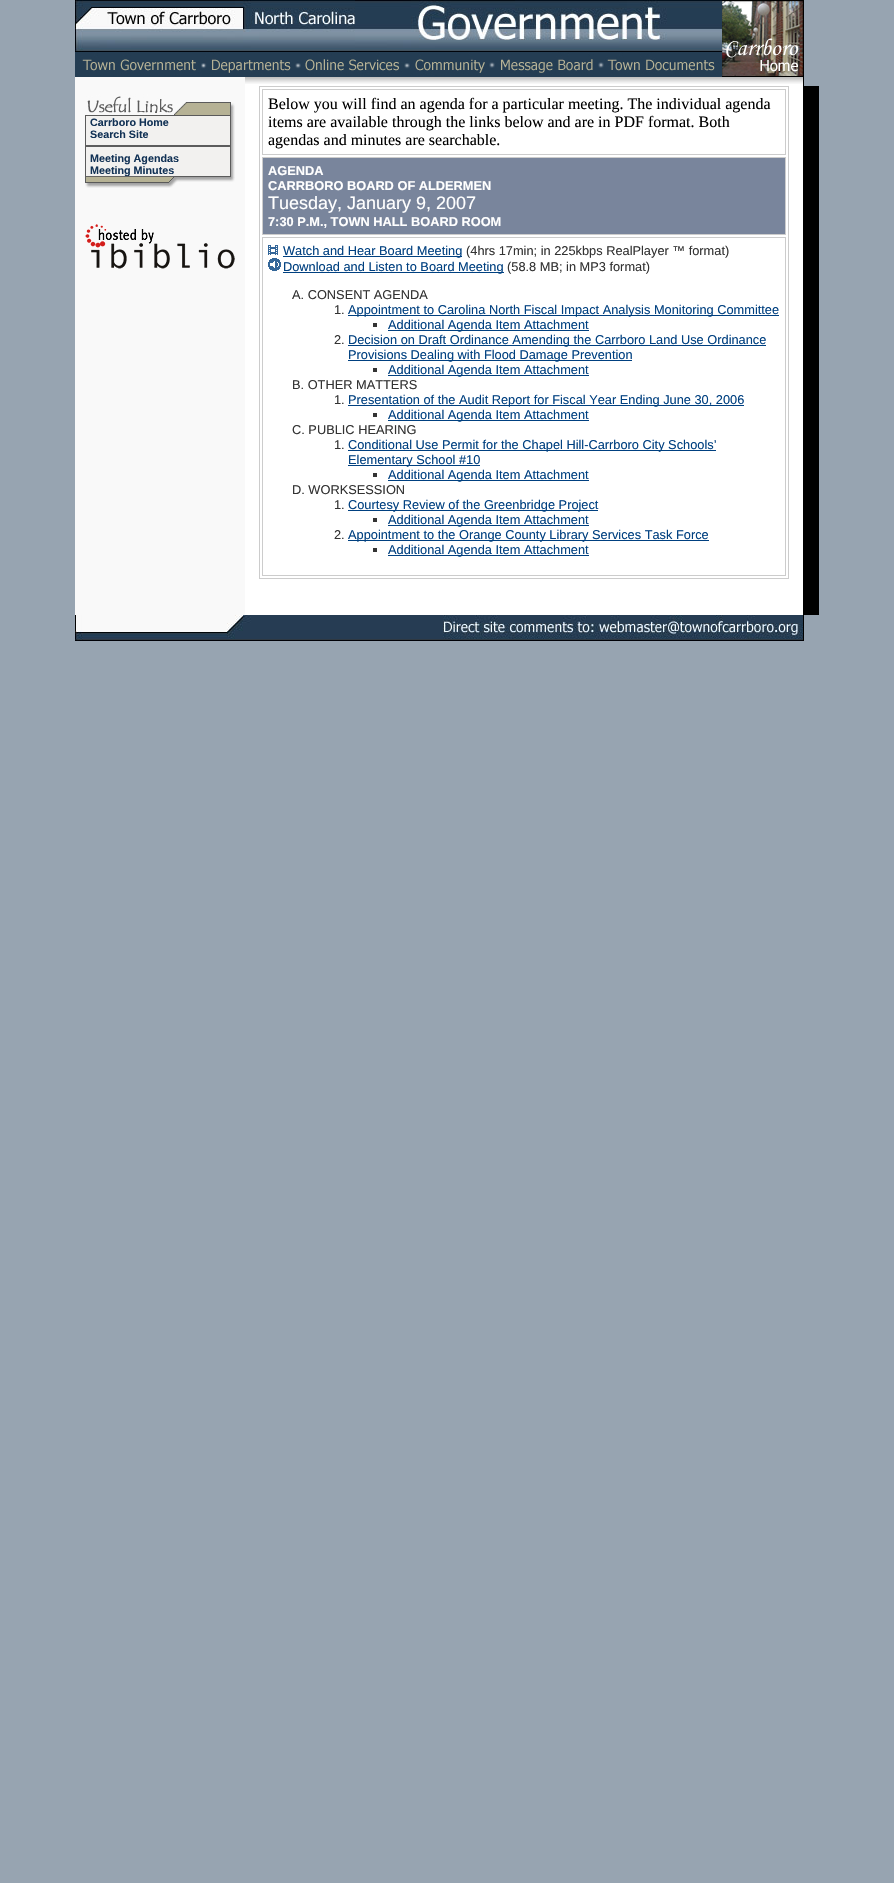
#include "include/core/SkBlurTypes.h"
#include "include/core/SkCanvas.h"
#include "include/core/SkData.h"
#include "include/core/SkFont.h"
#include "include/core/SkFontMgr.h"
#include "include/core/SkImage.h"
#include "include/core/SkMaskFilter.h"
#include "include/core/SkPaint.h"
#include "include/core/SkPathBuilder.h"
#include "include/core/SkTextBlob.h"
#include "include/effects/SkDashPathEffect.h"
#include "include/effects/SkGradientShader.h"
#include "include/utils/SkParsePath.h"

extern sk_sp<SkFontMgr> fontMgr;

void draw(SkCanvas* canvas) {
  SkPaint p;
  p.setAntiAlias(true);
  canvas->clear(SkColorSetRGB(151, 164, 177));
  canvas->drawImageRect(SkImages::DeferredFromEncodedData(SkData::MakeFromFileName("images/1.png")), SkRect::MakeLTRB(75, 0, 355, 52), SkSamplingOptions());
  canvas->drawImageRect(SkImages::DeferredFromEncodedData(SkData::MakeFromFileName("images/2.png")), SkRect::MakeLTRB(355, 0, 722, 52), SkSamplingOptions());
  canvas->drawImageRect(SkImages::DeferredFromEncodedData(SkData::MakeFromFileName("images/3.png")), SkRect::MakeLTRB(722, 0, 804, 52), SkSamplingOptions());
  canvas->drawImageRect(SkImages::DeferredFromEncodedData(SkData::MakeFromFileName("images/4.png")), SkRect::MakeLTRB(75, 52, 205, 77), SkSamplingOptions());
  canvas->drawImageRect(SkImages::DeferredFromEncodedData(SkData::MakeFromFileName("images/5.png")), SkRect::MakeLTRB(205, 52, 300, 77), SkSamplingOptions());
  canvas->drawImageRect(SkImages::DeferredFromEncodedData(SkData::MakeFromFileName("images/6.png")), SkRect::MakeLTRB(300, 52, 410, 77), SkSamplingOptions());
  canvas->drawImageRect(SkImages::DeferredFromEncodedData(SkData::MakeFromFileName("images/7.png")), SkRect::MakeLTRB(410, 52, 490, 77), SkSamplingOptions());
  canvas->drawImageRect(SkImages::DeferredFromEncodedData(SkData::MakeFromFileName("images/8.png")), SkRect::MakeLTRB(490, 52, 600, 77), SkSamplingOptions());
  canvas->drawImageRect(SkImages::DeferredFromEncodedData(SkData::MakeFromFileName("images/9.png")), SkRect::MakeLTRB(600, 52, 722, 77), SkSamplingOptions());
  canvas->drawImageRect(SkImages::DeferredFromEncodedData(SkData::MakeFromFileName("images/10.png")), SkRect::MakeLTRB(722, 52, 804, 77), SkSamplingOptions());
  p.setColor(SK_ColorWHITE);
  canvas->drawRect(SkRect::MakeLTRB(245, 84, 803, 615), p);
  canvas->drawImageRect(SkImages::DeferredFromEncodedData(SkData::MakeFromFileName("images/11.png")), SkRect::MakeLTRB(245, 77, 803, 84), SkSamplingOptions());
  p.setColor(SK_ColorBLACK);
  canvas->drawRect(SkRect::MakeLTRB(803, 77, 804, 86), p);
  p.setColor(SkColorSetRGB(249, 249, 249));
  canvas->drawRect(SkRect::MakeLTRB(75, 77, 245, 615), p);
  canvas->drawImageRect(SkImages::DeferredFromEncodedData(SkData::MakeFromFileName("images/12.png")), SkRect::MakeLTRB(85, 116, 235, 176), SkSamplingOptions());
  canvas->drawImageRect(SkImages::DeferredFromEncodedData(SkData::MakeFromFileName("images/13.png")), SkRect::MakeLTRB(85, 86, 235, 116), SkSamplingOptions());
  canvas->drawImageRect(SkImages::DeferredFromEncodedData(SkData::MakeFromFileName("images/14.png")), SkRect::MakeLTRB(86, 145, 230, 147), SkSamplingOptions());
  canvas->drawImageRect(SkImages::DeferredFromEncodedData(SkData::MakeFromFileName("images/16.png")), SkRect::MakeLTRB(85, 224, 235, 269), SkSamplingOptions());
  p.setStyle(SkPaint::kStroke_Style);
  p.setStrokeWidth(1);
  p.setColor(SkColorSetRGB(204, 204, 204));
  canvas->drawRect(SkRect::MakeLTRB(259.5f, 86.5f, 788.5f, 578.5f), p);
  canvas->drawRect(SkRect::MakeLTRB(262.5f, 89.5f, 785.5f, 154.5f), p);
  p.setStyle(SkPaint::kFill_Style);
  p.setColor(SkColorSetRGB(121, 133, 156));
  canvas->drawRect(SkRect::MakeLTRB(262.5f, 157.5f, 785.5f, 234.5f), p);
  p.setStyle(SkPaint::kStroke_Style);
  p.setColor(SkColorSetRGB(204, 204, 204));
  canvas->drawRect(SkRect::MakeLTRB(262.5f, 157.5f, 785.5f, 234.5f), p);
  canvas->drawRect(SkRect::MakeLTRB(262.5f, 237.5f, 785.5f, 575.5f), p);
  canvas->drawImageRect(SkImages::DeferredFromEncodedData(SkData::MakeFromFileName("images/17.png")), SkRect::MakeLTRB(268, 245, 278, 255), SkSamplingOptions());
  p.setStyle(SkPaint::kFill_Style);
  p.setColor(SkColorSetRGB(0, 64, 128));
  canvas->drawRect(SkRect::MakeLTRB(283, 256, 462, 257), p);
  canvas->drawImageRect(SkImages::DeferredFromEncodedData(SkData::MakeFromFileName("images/18.png")), SkRect::MakeLTRB(268, 258, 281, 271), SkSamplingOptions());
  canvas->drawRect(SkRect::MakeLTRB(283, 272, 504, 273), p);
  canvas->drawRect(SkRect::MakeLTRB(348, 315, 779, 316), p);
  p.setColor(SkColorSetRGB(51, 51, 51));
  canvas->drawRect(SkRect::MakeLTRB(373, 323, 377, 327), p);
  p.setColor(SkColorSetRGB(0, 64, 128));
  canvas->drawRect(SkRect::MakeLTRB(388, 330, 589, 331), p);
  canvas->drawRect(SkRect::MakeLTRB(348, 345, 766, 346), p);
  canvas->drawRect(SkRect::MakeLTRB(348, 360, 632, 361), p);
  p.setColor(SkColorSetRGB(51, 51, 51));
  canvas->drawRect(SkRect::MakeLTRB(373, 368, 377, 372), p);
  p.setColor(SkColorSetRGB(0, 64, 128));
  canvas->drawRect(SkRect::MakeLTRB(388, 375, 589, 376), p);
  canvas->drawRect(SkRect::MakeLTRB(348, 405, 744, 406), p);
  p.setColor(SkColorSetRGB(51, 51, 51));
  canvas->drawRect(SkRect::MakeLTRB(373, 413, 377, 417), p);
  p.setColor(SkColorSetRGB(0, 64, 128));
  canvas->drawRect(SkRect::MakeLTRB(388, 420, 589, 421), p);
  canvas->drawRect(SkRect::MakeLTRB(348, 450, 716, 451), p);
  canvas->drawRect(SkRect::MakeLTRB(348, 465, 480, 466), p);
  p.setColor(SkColorSetRGB(51, 51, 51));
  canvas->drawRect(SkRect::MakeLTRB(373, 473, 377, 477), p);
  p.setColor(SkColorSetRGB(0, 64, 128));
  canvas->drawRect(SkRect::MakeLTRB(388, 480, 589, 481), p);
  canvas->drawRect(SkRect::MakeLTRB(348, 510, 598, 511), p);
  p.setColor(SkColorSetRGB(51, 51, 51));
  canvas->drawRect(SkRect::MakeLTRB(373, 518, 377, 522), p);
  p.setColor(SkColorSetRGB(0, 64, 128));
  canvas->drawRect(SkRect::MakeLTRB(388, 525, 589, 526), p);
  canvas->drawRect(SkRect::MakeLTRB(348, 540, 709, 541), p);
  p.setColor(SkColorSetRGB(51, 51, 51));
  canvas->drawRect(SkRect::MakeLTRB(373, 548, 377, 552), p);
  p.setColor(SkColorSetRGB(0, 64, 128));
  canvas->drawRect(SkRect::MakeLTRB(388, 555, 589, 556), p);
  p.setColor(SK_ColorBLACK);
  canvas->drawRect(SkRect::MakeLTRB(803, 86, 819, 615), p);
  canvas->drawImageRect(SkImages::DeferredFromEncodedData(SkData::MakeFromFileName("images/19.png")), SkRect::MakeLTRB(75, 615, 804, 641), SkSamplingOptions());
  SkFont font1(fontMgr->matchFamilyStyle("Liberation Sans", SkFontStyle::Bold()), 10.75f);
  font1.setSubpixel(true);
  p.setColor(SkColorSetRGB(18, 50, 85));
  canvas->drawString("Carrboro Home", 90, 126, font1, p);
  canvas->drawString("Search Site", 90, 138, font1, p);
  canvas->drawString("Meeting Agendas", 90, 162, font1, p);
  canvas->drawString("Meeting Minutes", 90, 174, font1, p);
  canvas->drawImageRect(SkImages::DeferredFromEncodedData(SkData::MakeFromFileName("images/15.png")), SkRect::MakeLTRB(85, 176, 235, 188), SkSamplingOptions());
  SkFont font2(fontMgr->matchFamilyStyle("Liberation Serif", SkFontStyle::Normal()), 16);
  font2.setSubpixel(true);
  p.setColor(SK_ColorBLACK);
  canvas->drawString("Below you will find an agenda for a particular meeting. The individual agenda", 268, 109, font2, p);
  canvas->drawString("items are available through the links below and are in PDF format. Both", 268, 127, font2, p);
  canvas->drawString("agendas and minutes are searchable.", 268, 145, font2, p);
  SkFont font3(fontMgr->matchFamilyStyle("Liberation Sans", SkFontStyle::Bold()), 12.8f);
  font3.setSubpixel(true);
  p.setColor(SK_ColorWHITE);
  canvas->drawString("AGENDA", 268, 175, font3, p);
  canvas->drawString("CARRBORO BOARD OF ALDERMEN", 268, 190, font3, p);
  SkFont font4(fontMgr->matchFamilyStyle("Liberation Sans", SkFontStyle::Normal()), 18);
  font4.setSubpixel(true);
  canvas->drawString("Tuesday, January 9, 2007", 268, 209, font4, p);
  canvas->drawString("7:30 P.M., TOWN HALL BOARD ROOM", 268, 226, font3, p);
  SkFont font5(fontMgr->matchFamilyStyle("Liberation Sans", SkFontStyle::Normal()), 12.8f);
  font5.setSubpixel(true);
  p.setColor(SkColorSetRGB(0, 64, 128));
  canvas->drawString("Watch and Hear Board Meeting", 283, 255, font5, p);
  p.setColor(SkColorSetRGB(51, 51, 51));
  canvas->drawString("(4hrs 17min; in 225kbps RealPlayer ™ format)", 466, 255, font5, p);
  p.setColor(SkColorSetRGB(0, 64, 128));
  canvas->drawString("Download and Listen to Board Meeting", 283, 271, font5, p);
  p.setColor(SkColorSetRGB(51, 51, 51));
  canvas->drawString("(58.8 MB; in MP3 format)", 507, 271, font5, p);
  canvas->drawString("A. CONSENT AGENDA", 292, 299, font5, p);
  canvas->drawString("1.", 334, 314, font5, p);
  p.setColor(SkColorSetRGB(0, 64, 128));
  canvas->drawString("Appointment to Carolina North Fiscal Impact Analysis Monitoring Committee", 348, 314, font5, p);
  canvas->drawString("Additional Agenda Item Attachment", 388, 329, font5, p);
  p.setColor(SkColorSetRGB(51, 51, 51));
  canvas->drawString("2.", 334, 344, font5, p);
  p.setColor(SkColorSetRGB(0, 64, 128));
  canvas->drawString("Decision on Draft Ordinance Amending the Carrboro Land Use Ordinance", 348, 344, font5, p);
  canvas->drawString("Provisions Dealing with Flood Damage Prevention", 348, 359, font5, p);
  canvas->drawString("Additional Agenda Item Attachment", 388, 374, font5, p);
  p.setColor(SkColorSetRGB(51, 51, 51));
  canvas->drawString("B. OTHER MATTERS", 292, 389, font5, p);
  canvas->drawString("1.", 334, 404, font5, p);
  p.setColor(SkColorSetRGB(0, 64, 128));
  canvas->drawString("Presentation of the Audit Report for Fiscal Year Ending June 30, 2006", 348, 404, font5, p);
  canvas->drawString("Additional Agenda Item Attachment", 388, 419, font5, p);
  p.setColor(SkColorSetRGB(51, 51, 51));
  canvas->drawString("C. PUBLIC HEARING", 292, 434, font5, p);
  canvas->drawString("1.", 334, 449, font5, p);
  p.setColor(SkColorSetRGB(0, 64, 128));
  canvas->drawString("Conditional Use Permit for the Chapel Hill-Carrboro City Schools’", 348, 449, font5, p);
  canvas->drawString("Elementary School #10", 348, 464, font5, p);
  canvas->drawString("Additional Agenda Item Attachment", 388, 479, font5, p);
  p.setColor(SkColorSetRGB(51, 51, 51));
  canvas->drawString("D. WORKSESSION", 292, 494, font5, p);
  canvas->drawString("1.", 334, 509, font5, p);
  p.setColor(SkColorSetRGB(0, 64, 128));
  canvas->drawString("Courtesy Review of the Greenbridge Project", 348, 509, font5, p);
  canvas->drawString("Additional Agenda Item Attachment", 388, 524, font5, p);
  p.setColor(SkColorSetRGB(51, 51, 51));
  canvas->drawString("2.", 334, 539, font5, p);
  p.setColor(SkColorSetRGB(0, 64, 128));
  canvas->drawString("Appointment to the Orange County Library Services Task Force", 348, 539, font5, p);
  canvas->drawString("Additional Agenda Item Attachment", 388, 554, font5, p);
}
